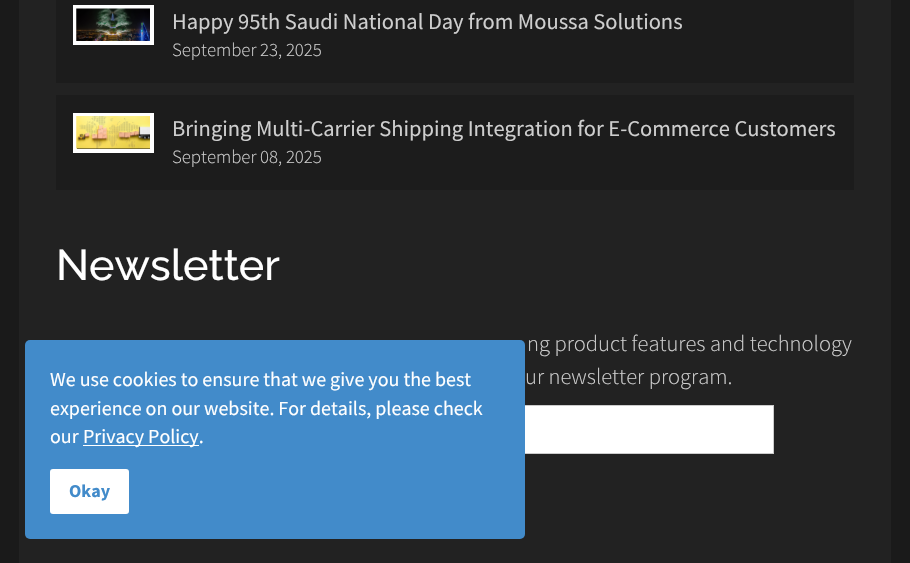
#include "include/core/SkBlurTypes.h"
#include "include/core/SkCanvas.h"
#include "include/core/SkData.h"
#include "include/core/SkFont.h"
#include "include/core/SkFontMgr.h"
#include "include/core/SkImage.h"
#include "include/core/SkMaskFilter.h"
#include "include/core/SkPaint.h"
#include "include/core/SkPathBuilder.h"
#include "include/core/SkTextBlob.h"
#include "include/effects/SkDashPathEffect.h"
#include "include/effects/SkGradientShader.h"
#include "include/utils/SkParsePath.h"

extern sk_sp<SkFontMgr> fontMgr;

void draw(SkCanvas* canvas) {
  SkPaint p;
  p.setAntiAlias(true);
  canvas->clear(SkColorSetRGB(26, 26, 26));
  p.setColor(SkColorSetRGB(34, 34, 34));
  canvas->drawRect(SkRect::MakeLTRB(19, 0, 891, 563), p);
  p.setColor(SkColorSetRGB(28, 28, 28));
  canvas->drawRect(SkRect::MakeLTRB(56, 0, 854, 83), p);
  p.setStyle(SkPaint::kStroke_Style);
  p.setStrokeWidth(4);
  p.setColor(SK_ColorWHITE);
  canvas->drawRect(SkRect::MakeLTRB(75, 7, 152, 43), p);
  canvas->drawImageRect(SkImages::DeferredFromEncodedData(SkData::MakeFromFileName("images/1.png")), SkRect::MakeLTRB(76, 8, 150, 41), SkSamplingOptions());
  p.setStyle(SkPaint::kFill_Style);
  p.setColor(SkColorSetRGB(28, 28, 28));
  canvas->drawRect(SkRect::MakeLTRB(56, 95, 854, 190), p);
  p.setStyle(SkPaint::kStroke_Style);
  p.setColor(SK_ColorWHITE);
  canvas->drawRect(SkRect::MakeLTRB(75, 115, 152, 151), p);
  canvas->drawImageRect(SkImages::DeferredFromEncodedData(SkData::MakeFromFileName("images/2.png")), SkRect::MakeLTRB(76, 116, 150, 149), SkSamplingOptions());
  p.setStyle(SkPaint::kFill_Style);
  canvas->drawRect(SkRect::MakeLTRB(525, 406, 773, 453), p);
  p.setStyle(SkPaint::kStroke_Style);
  p.setStrokeWidth(1);
  p.setColor(SkColorSetRGB(204, 204, 204));
  canvas->drawRect(SkRect::MakeLTRB(56.5f, 405.5f, 773.5f, 453.5f), p);
  p.setStyle(SkPaint::kFill_Style);
  p.setColor(SkColorSetRGB(66, 139, 202));
  canvas->drawRoundRect(SkRect::MakeLTRB(25, 340, 525, 539), 5, 5, p);
  p.setColor(SK_ColorWHITE);
  canvas->drawRect(SkRect::MakeLTRB(83, 445, 199, 446), p);
  canvas->drawRoundRect(SkRect::MakeLTRB(50, 469, 129, 514), 3, 3, p);
  SkFont font1(fontMgr->matchFamilyStyle("Source Sans Pro", SkFontStyle::Normal()), 22.5f);
  font1.setSubpixel(true);
  p.setColor(SkColorSetRGB(206, 206, 206));
  canvas->drawString("Happy 95th Saudi National Day from Moussa Solutions", 172, 29, font1, p);
  SkFont font2(fontMgr->matchFamilyStyle("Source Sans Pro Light", SkFontStyle(300, SkFontStyle::kNormal_Width, SkFontStyle::kUpright_Slant)), 18.75f);
  font2.setSubpixel(true);
  canvas->drawString("September 23, 2025", 172, 56, font2, p);
  canvas->drawString("Bringing Multi-Carrier Shipping Integration for E-Commerce Customers", 172, 136, font1, p);
  canvas->drawString("September 08, 2025", 172, 163, font2, p);
  SkFont font3(fontMgr->matchFamilyStyle("Raleway", SkFontStyle(500, SkFontStyle::kNormal_Width, SkFontStyle::kUpright_Slant)), 43);
  font3.setSubpixel(true);
  p.setColor(SK_ColorWHITE);
  canvas->drawString("Newsletter", 56, 280, font3, p);
  SkFont font4(fontMgr->matchFamilyStyle("Source Sans Pro Light", SkFontStyle(300, SkFontStyle::kNormal_Width, SkFontStyle::kUpright_Slant)), 22.5f);
  font4.setSubpixel(true);
  p.setColor(SkColorSetRGB(206, 206, 206));
  canvas->drawString("ng product features and technology", 527, 351, font4, p);
  canvas->drawString("ur newsletter program.", 525, 384, font4, p);
  SkFont font5(fontMgr->matchFamilyStyle("Source Sans Pro", SkFontStyle::Normal()), 20);
  font5.setSubpixel(true);
  p.setColor(SK_ColorWHITE);
  canvas->drawString("We use cookies to ensure that we give you the best", 50, 386, font5, p);
  canvas->drawString("experience on our website. For details, please check", 50, 415, font5, p);
  canvas->drawString("our", 50, 443, font5, p);
  canvas->drawString("Privacy Policy.", 83, 443, font5, p);
  SkFont font6(fontMgr->matchFamilyStyle("Source Sans Pro", SkFontStyle::Bold()), 18);
  font6.setSubpixel(true);
  p.setColor(SkColorSetRGB(66, 139, 202));
  canvas->drawString("Okay", 69, 497, font6, p);
}
